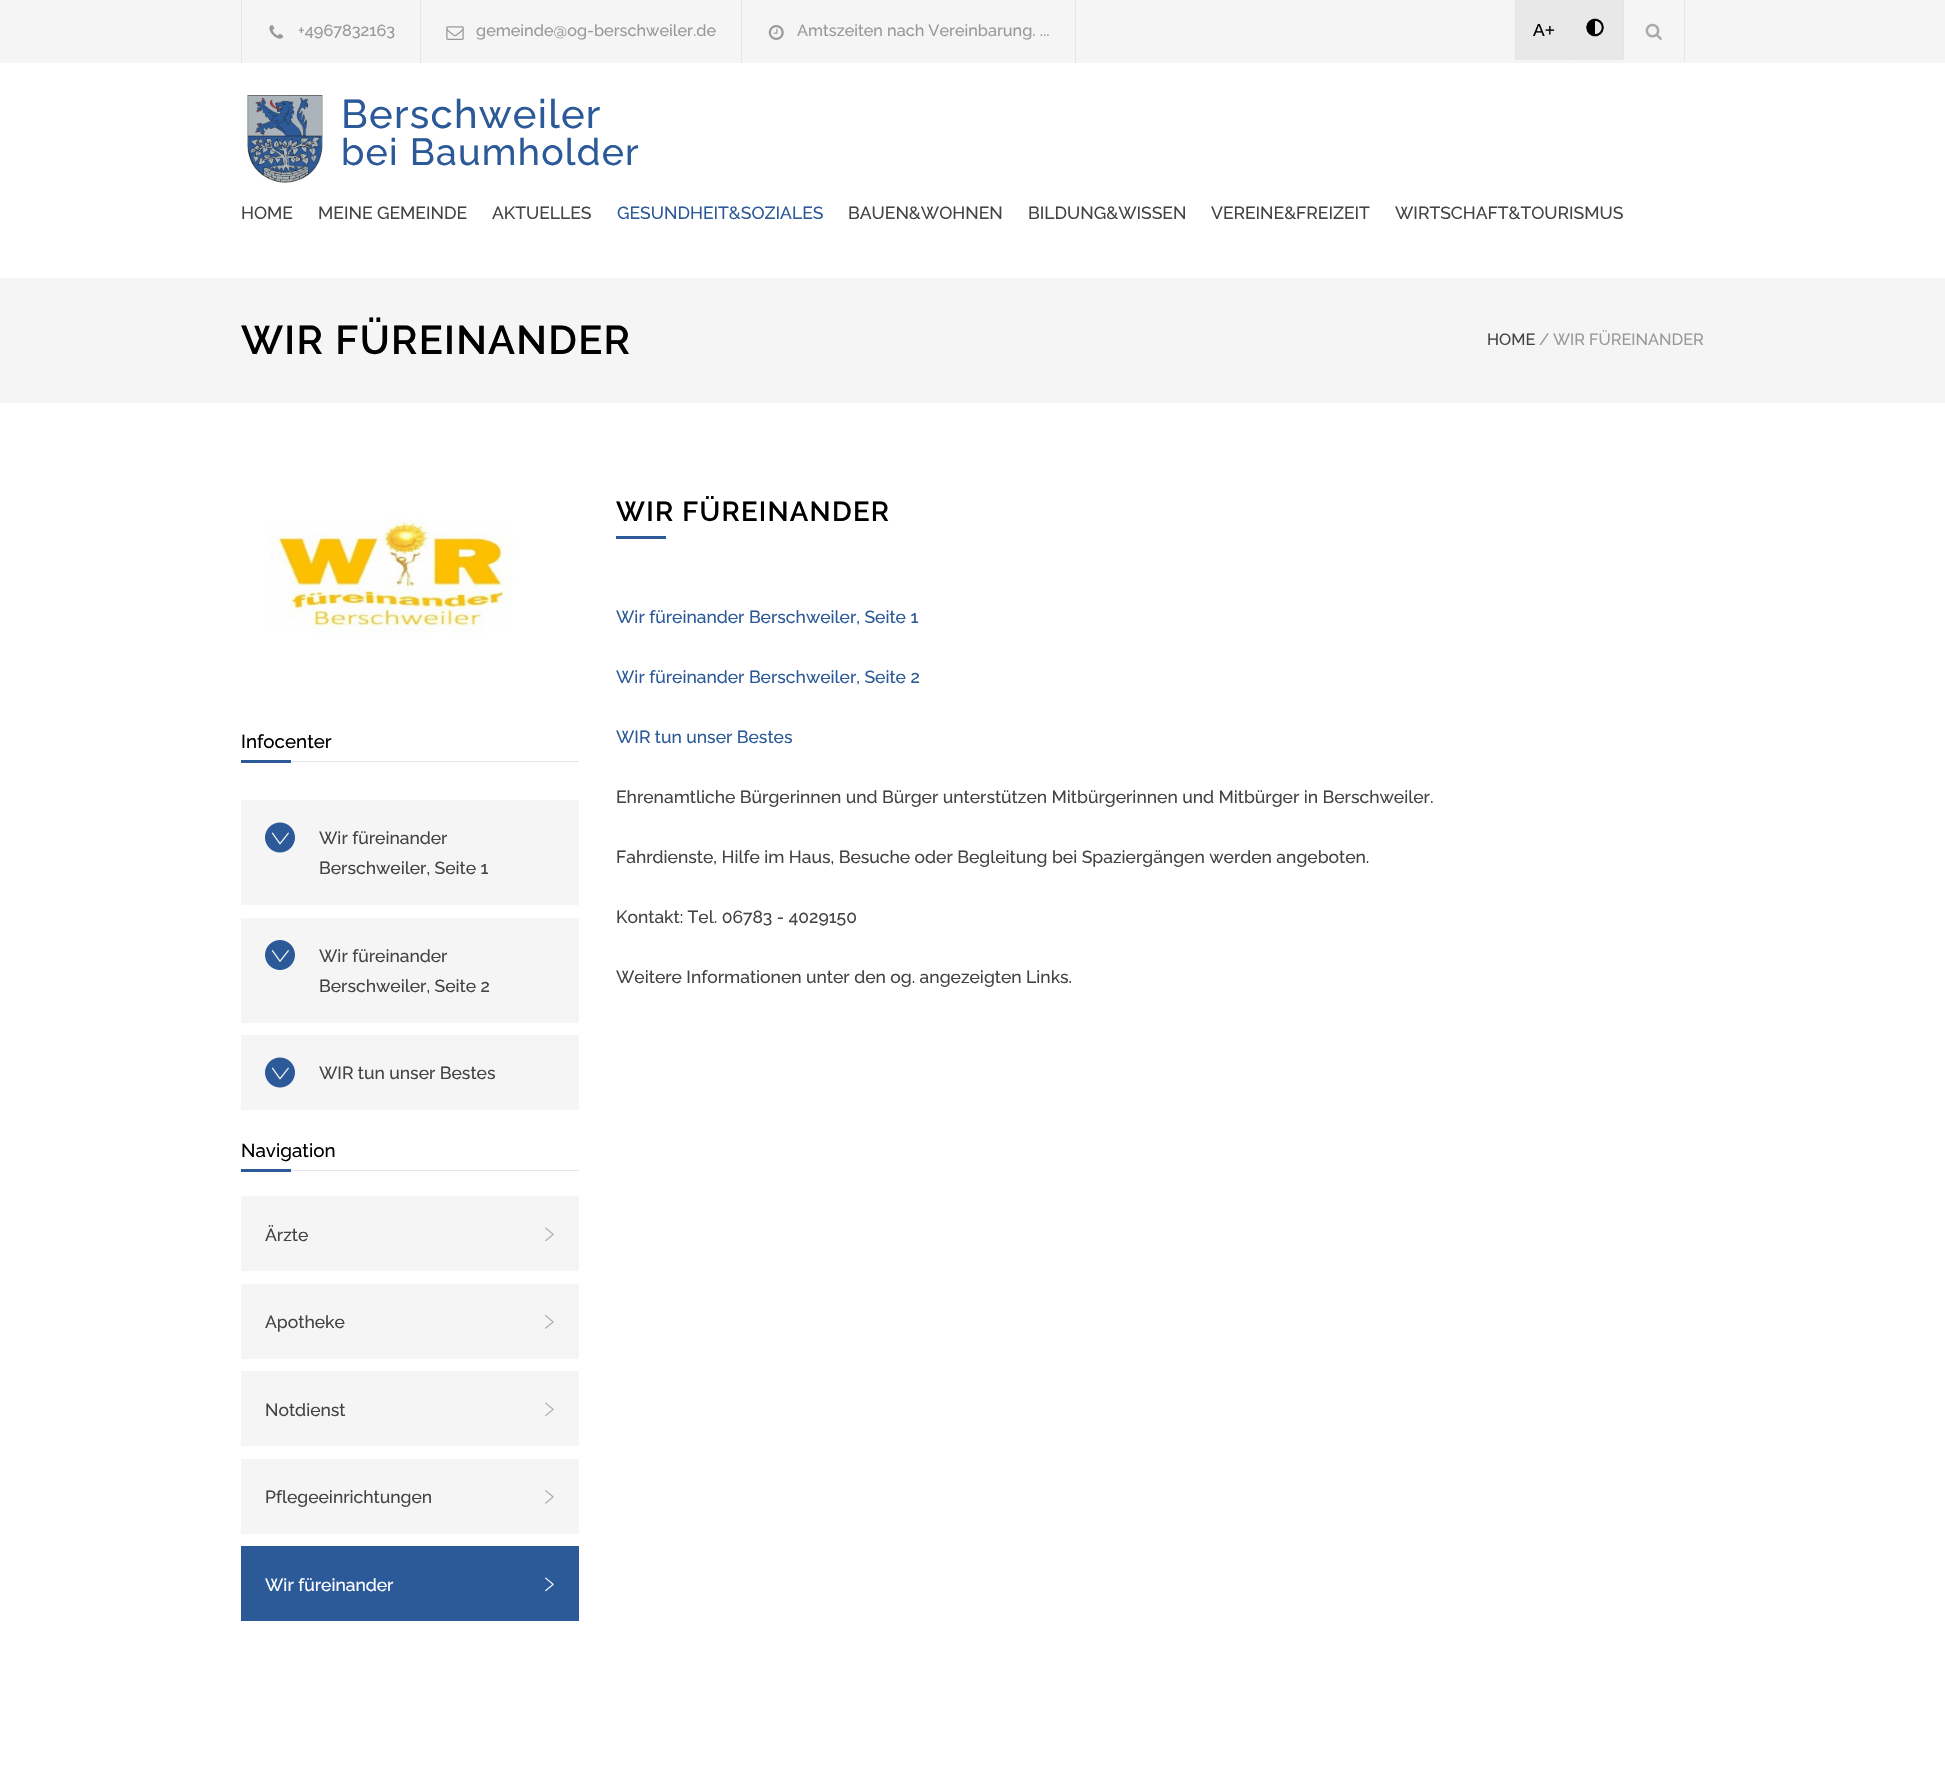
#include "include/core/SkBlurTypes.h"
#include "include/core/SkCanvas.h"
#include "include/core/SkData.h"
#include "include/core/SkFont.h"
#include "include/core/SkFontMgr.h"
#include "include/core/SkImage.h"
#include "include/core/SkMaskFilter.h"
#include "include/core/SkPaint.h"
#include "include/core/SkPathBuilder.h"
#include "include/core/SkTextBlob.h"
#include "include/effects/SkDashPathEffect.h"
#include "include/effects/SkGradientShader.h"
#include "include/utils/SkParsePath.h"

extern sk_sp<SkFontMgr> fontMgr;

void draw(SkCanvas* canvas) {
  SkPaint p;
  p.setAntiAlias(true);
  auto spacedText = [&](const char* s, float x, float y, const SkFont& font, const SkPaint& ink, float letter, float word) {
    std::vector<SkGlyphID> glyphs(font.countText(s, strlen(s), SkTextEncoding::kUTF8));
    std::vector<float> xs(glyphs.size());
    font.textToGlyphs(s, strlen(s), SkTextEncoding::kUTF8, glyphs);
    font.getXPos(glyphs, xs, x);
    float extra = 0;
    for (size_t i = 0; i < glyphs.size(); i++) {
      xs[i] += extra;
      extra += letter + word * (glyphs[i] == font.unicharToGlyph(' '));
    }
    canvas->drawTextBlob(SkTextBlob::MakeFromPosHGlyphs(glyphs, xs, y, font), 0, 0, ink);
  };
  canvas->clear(SK_ColorWHITE);
  p.setColor(SkColorSetRGB(245, 245, 245));
  canvas->drawRect(SkRect::MakeLTRB(0, 0, 1945, 63), p);
  p.setColor(SkColorSetRGB(226, 230, 231));
  canvas->drawRect(SkRect::MakeLTRB(420, 0, 421, 63), p);
  canvas->drawRect(SkRect::MakeLTRB(241, 0, 242, 63), p);
  canvas->drawImageRect(SkImages::DeferredFromEncodedData(SkData::MakeFromFileName("images/1.png")), SkRect::MakeLTRB(269, 25, 283, 39), SkSamplingOptions());
  canvas->drawRect(SkRect::MakeLTRB(741, 0, 742, 63), p);
  canvas->drawImageRect(SkImages::DeferredFromEncodedData(SkData::MakeFromFileName("images/2.png")), SkRect::MakeLTRB(446, 26, 464, 40), SkSamplingOptions());
  canvas->drawRect(SkRect::MakeLTRB(1075, 0, 1076, 63), p);
  canvas->drawImageRect(SkImages::DeferredFromEncodedData(SkData::MakeFromFileName("images/3.png")), SkRect::MakeLTRB(768, 25, 784, 40), SkSamplingOptions());
  p.setColor(SkColorSetRGB(232, 232, 232));
  canvas->drawRect(SkRect::MakeLTRB(1516, 0, 1569, 60), p);
  p.setColor(SkColorSetRGB(226, 230, 231));
  canvas->drawRect(SkRect::MakeLTRB(1569, 0, 1570, 60), p);
  canvas->drawRect(SkRect::MakeLTRB(1515, 0, 1516, 60), p);
  p.setColor(SkColorSetRGB(232, 232, 232));
  canvas->drawRect(SkRect::MakeLTRB(1570, 0, 1623, 60), p);
  p.setColor(SkColorSetRGB(226, 230, 231));
  canvas->drawRect(SkRect::MakeLTRB(1623, 0, 1624, 60), p);
  canvas->drawImageRect(SkImages::DeferredFromEncodedData(SkData::MakeFromFileName("images/4.png")), SkRect::MakeLTRB(1586, 18, 1604, 37), SkSamplingOptions());
  canvas->drawRect(SkRect::MakeLTRB(1684, 0, 1685, 61), p);
  canvas->drawImageRect(SkImages::DeferredFromEncodedData(SkData::MakeFromFileName("images/5.png")), SkRect::MakeLTRB(1645, 23, 1662, 40), SkSamplingOptions());
  canvas->drawImageRect(SkImages::DeferredFromEncodedData(SkData::MakeFromFileName("images/6.png")), SkRect::MakeLTRB(247, 95, 323, 183), SkSamplingOptions());
  p.setColor(SkColorSetRGB(245, 245, 245));
  canvas->drawRect(SkRect::MakeLTRB(0, 278, 1945, 403), p);
  canvas->drawImageRect(SkImages::DeferredFromEncodedData(SkData::MakeFromFileName("images/7.png")), SkRect::MakeLTRB(270, 519, 513, 633), SkSamplingOptions());
  p.setColor(SkColorSetRGB(226, 230, 231));
  canvas->drawRect(SkRect::MakeLTRB(291, 761, 579, 762), p);
  p.setColor(SkColorSetRGB(44, 90, 153));
  canvas->drawRect(SkRect::MakeLTRB(241, 760, 291, 763), p);
  p.setColor(SkColorSetRGB(245, 245, 245));
  canvas->drawRect(SkRect::MakeLTRB(241, 800, 579, 905), p);
  canvas->drawImageRect(SkImages::DeferredFromEncodedData(SkData::MakeFromFileName("images/8.png")), SkRect::MakeLTRB(265, 822, 295, 853), SkSamplingOptions());
  canvas->drawRect(SkRect::MakeLTRB(241, 918, 579, 1023), p);
  canvas->drawImageRect(SkImages::DeferredFromEncodedData(SkData::MakeFromFileName("images/9.png")), SkRect::MakeLTRB(265, 940, 295, 970), SkSamplingOptions());
  canvas->drawRect(SkRect::MakeLTRB(241, 1035, 579, 1110), p);
  canvas->drawImageRect(SkImages::DeferredFromEncodedData(SkData::MakeFromFileName("images/8.png")), SkRect::MakeLTRB(265, 1057, 295, 1088), SkSamplingOptions());
  p.setColor(SkColorSetRGB(226, 230, 231));
  canvas->drawRect(SkRect::MakeLTRB(291, 1170, 579, 1171), p);
  p.setColor(SkColorSetRGB(44, 90, 153));
  canvas->drawRect(SkRect::MakeLTRB(241, 1169, 291, 1172), p);
  p.setColor(SkColorSetRGB(245, 245, 245));
  canvas->drawRect(SkRect::MakeLTRB(241, 1196, 579, 1271), p);
  canvas->drawImageRect(SkImages::DeferredFromEncodedData(SkData::MakeFromFileName("images/10.png")), SkRect::MakeLTRB(545, 1227, 554, 1242), SkSamplingOptions());
  canvas->drawRect(SkRect::MakeLTRB(241, 1284, 579, 1359), p);
  canvas->drawImageRect(SkImages::DeferredFromEncodedData(SkData::MakeFromFileName("images/11.png")), SkRect::MakeLTRB(545, 1315, 554, 1329), SkSamplingOptions());
  canvas->drawRect(SkRect::MakeLTRB(241, 1371, 579, 1446), p);
  canvas->drawImageRect(SkImages::DeferredFromEncodedData(SkData::MakeFromFileName("images/10.png")), SkRect::MakeLTRB(545, 1402, 554, 1417), SkSamplingOptions());
  canvas->drawRect(SkRect::MakeLTRB(241, 1459, 579, 1534), p);
  canvas->drawImageRect(SkImages::DeferredFromEncodedData(SkData::MakeFromFileName("images/11.png")), SkRect::MakeLTRB(545, 1490, 554, 1504), SkSamplingOptions());
  p.setColor(SkColorSetRGB(44, 90, 153));
  canvas->drawRect(SkRect::MakeLTRB(241, 1546, 579, 1621), p);
  canvas->drawImageRect(SkImages::DeferredFromEncodedData(SkData::MakeFromFileName("images/12.png")), SkRect::MakeLTRB(545, 1577, 554, 1592), SkSamplingOptions());
  canvas->drawRect(SkRect::MakeLTRB(616, 536, 666, 539), p);
  SkFont font1(fontMgr->matchFamilyStyle("Raleway", SkFontStyle(500, SkFontStyle::kNormal_Width, SkFontStyle::kUpright_Slant)), 16.25f);
  font1.setSubpixel(true);
  p.setColor(SkColorSetRGB(153, 153, 153));
  canvas->drawString("+4967832163", 298, 36, font1, p);
  canvas->drawString("gemeinde@og-berschweiler.de", 476, 36, font1, p);
  canvas->drawString("Amtszeiten nach Vereinbarung. ...", 797, 36, font1, p);
  SkFont font2(fontMgr->matchFamilyStyle("Liberation Sans", SkFontStyle::Normal()), 17.5f);
  font2.setSubpixel(true);
  p.setColor(SK_ColorBLACK);
  canvas->drawString("A+", 1533, 36, font2, p);
  SkFont font3(fontMgr->matchFamilyStyle("Raleway", SkFontStyle(500, SkFontStyle::kNormal_Width, SkFontStyle::kUpright_Slant)), 40);
  font3.setSubpixel(true);
  p.setColor(SkColorSetRGB(44, 90, 153));
  spacedText("Berschweiler", 341, 128, font3, p, 1.25f, 0);
  SkFont font4(fontMgr->matchFamilyStyle("Raleway", SkFontStyle(500, SkFontStyle::kNormal_Width, SkFontStyle::kUpright_Slant)), 37.5f);
  font4.setSubpixel(true);
  spacedText("bei Baumholder", 341, 165, font4, p, 1.25f, 0);
  SkFont font5(fontMgr->matchFamilyStyle("Raleway", SkFontStyle(500, SkFontStyle::kNormal_Width, SkFontStyle::kUpright_Slant)), 17.5f);
  font5.setSubpixel(true);
  p.setColor(SkColorSetRGB(68, 68, 68));
  canvas->drawString("HOME", 241, 219, font5, p);
  canvas->drawString("MEINE GEMEINDE", 318, 219, font5, p);
  canvas->drawString("AKTUELLES", 492, 219, font5, p);
  p.setColor(SkColorSetRGB(44, 90, 153));
  canvas->drawString("GESUNDHEIT&SOZIALES", 617, 219, font5, p);
  p.setColor(SkColorSetRGB(68, 68, 68));
  canvas->drawString("BAUEN&WOHNEN", 848, 219, font5, p);
  canvas->drawString("BILDUNG&WISSEN", 1028, 219, font5, p);
  canvas->drawString("VEREINE&FREIZEIT", 1211, 219, font5, p);
  canvas->drawString("WIRTSCHAFT&TOURISMUS", 1395, 219, font5, p);
  SkFont font6(fontMgr->matchFamilyStyle("Raleway", SkFontStyle(600, SkFontStyle::kNormal_Width, SkFontStyle::kUpright_Slant)), 40);
  font6.setSubpixel(true);
  p.setColor(SK_ColorBLACK);
  spacedText("WIR FÜREINANDER", 241, 354, font6, p, 1.25f, 0);
  p.setColor(SkColorSetRGB(68, 68, 68));
  canvas->drawString("HOME", 1487, 345, font1, p);
  p.setColor(SkColorSetRGB(153, 153, 153));
  canvas->drawString("/", 1539, 345, font1, p);
  canvas->drawString("WIR FÜREINANDER", 1553, 345, font1, p);
  SkFont font7(fontMgr->matchFamilyStyle("Raleway", SkFontStyle(500, SkFontStyle::kNormal_Width, SkFontStyle::kUpright_Slant)), 18.75f);
  font7.setSubpixel(true);
  p.setColor(SK_ColorBLACK);
  canvas->drawString("Infocenter", 241, 748, font7, p);
  p.setColor(SkColorSetRGB(68, 68, 68));
  canvas->drawString("Wir füreinander", 319, 844, font5, p);
  canvas->drawString("Berschweiler, Seite 1", 319, 874, font5, p);
  canvas->drawString("Wir füreinander", 319, 962, font5, p);
  canvas->drawString("Berschweiler, Seite 2", 319, 992, font5, p);
  canvas->drawString("WIR tun unser Bestes", 319, 1079, font5, p);
  p.setColor(SK_ColorBLACK);
  canvas->drawString("Navigation", 241, 1157, font7, p);
  p.setColor(SkColorSetRGB(68, 68, 68));
  canvas->drawString("Ärzte", 265, 1241, font5, p);
  canvas->drawString("Apotheke", 265, 1328, font5, p);
  canvas->drawString("Notdienst", 265, 1416, font5, p);
  canvas->drawString("Pflegeeinrichtungen", 265, 1503, font5, p);
  p.setColor(SK_ColorWHITE);
  canvas->drawString("Wir füreinander", 265, 1591, font5, p);
  SkFont font8(fontMgr->matchFamilyStyle("Raleway", SkFontStyle(600, SkFontStyle::kNormal_Width, SkFontStyle::kUpright_Slant)), 27.5f);
  font8.setSubpixel(true);
  p.setColor(SK_ColorBLACK);
  spacedText("WIR FÜREINANDER", 616, 521, font8, p, 1.25f, 0);
  p.setColor(SkColorSetRGB(44, 90, 153));
  canvas->drawString("Wir füreinander Berschweiler, Seite 1", 616, 623, font5, p);
  canvas->drawString("Wir füreinander Berschweiler, Seite 2", 616, 683, font5, p);
  canvas->drawString("WIR tun unser Bestes", 616, 743, font5, p);
  p.setColor(SkColorSetRGB(68, 68, 68));
  canvas->drawString("Ehrenamtliche Bürgerinnen und Bürger unterstützen Mitbürgerinnen und Mitbürger in Berschweiler.", 616, 803, font5, p);
  canvas->drawString("Fahrdienste, Hilfe im Haus, Besuche oder Begleitung bei Spaziergängen werden angeboten.", 616, 863, font5, p);
  canvas->drawString("Kontakt: Tel. 06783 - 4029150", 616, 923, font5, p);
  canvas->drawString("Weitere Informationen unter den og. angezeigten Links.", 616, 983, font5, p);
}
